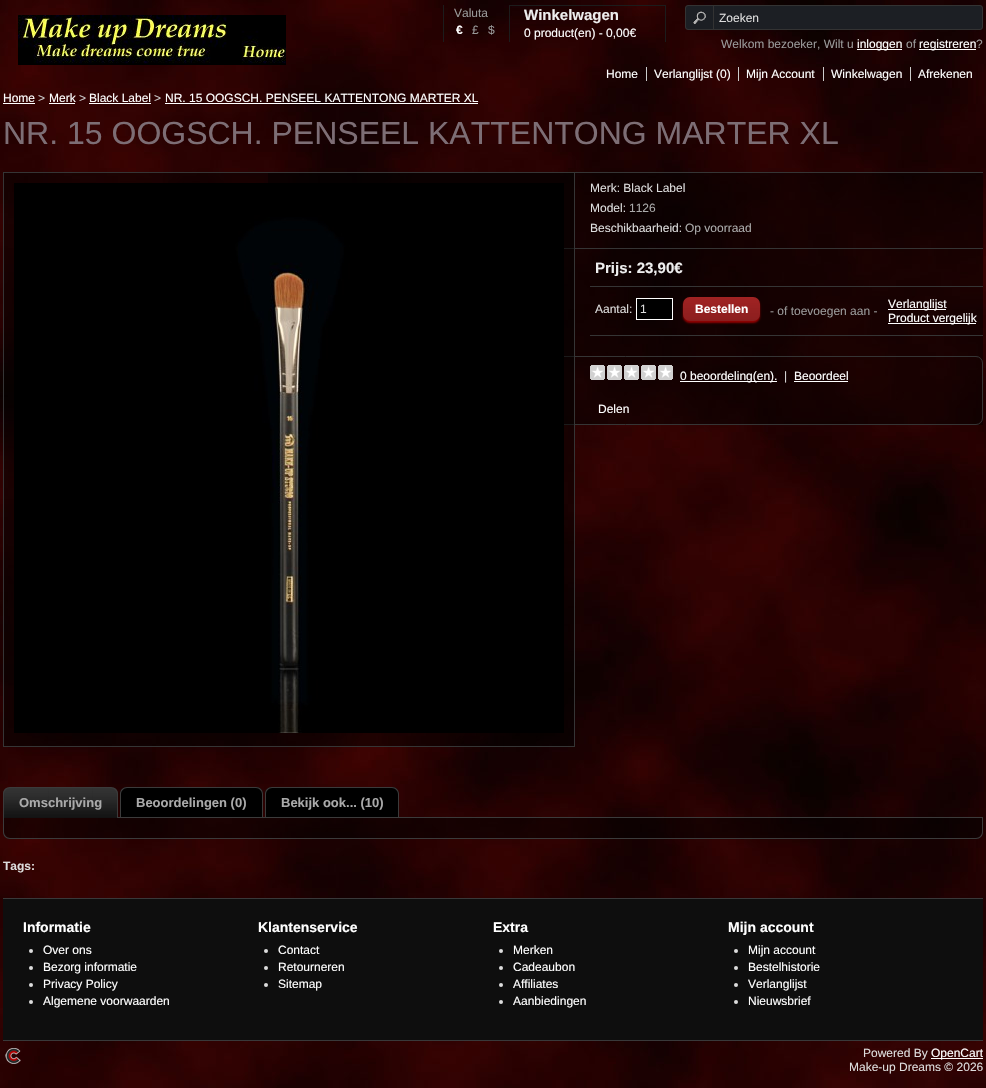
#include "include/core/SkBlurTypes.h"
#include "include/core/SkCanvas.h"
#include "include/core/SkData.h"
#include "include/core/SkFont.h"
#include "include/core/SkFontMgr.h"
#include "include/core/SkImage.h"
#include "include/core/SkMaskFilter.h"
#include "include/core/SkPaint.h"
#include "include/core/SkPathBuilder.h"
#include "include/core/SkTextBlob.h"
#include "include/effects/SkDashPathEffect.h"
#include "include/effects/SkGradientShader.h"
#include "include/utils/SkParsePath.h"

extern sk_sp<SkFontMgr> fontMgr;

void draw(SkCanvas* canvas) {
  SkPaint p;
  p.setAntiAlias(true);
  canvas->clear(SK_ColorWHITE);
  canvas->drawImageRect(SkImages::DeferredFromEncodedData(SkData::MakeFromFileName("images/1.png")), SkRect::MakeLTRB(0, 0, 986, 1088), SkSamplingOptions());
  canvas->drawImageRect(SkImages::DeferredFromEncodedData(SkData::MakeFromFileName("images/2.png")), SkRect::MakeLTRB(18, 15, 286, 65), SkSamplingOptions());
  p.setColor(SkColorSetRGB(28, 28, 28));
  canvas->drawRect(SkRect::MakeLTRB(443, 5, 444, 42), p);
  canvas->drawRect(SkRect::MakeLTRB(509, 5, 666, 6), p);
  canvas->drawRect(SkRect::MakeLTRB(665, 5, 666, 42), p);
  canvas->drawRect(SkRect::MakeLTRB(509, 5, 510, 42), p);
  p.setColor(SkColorSetRGB(28, 31, 36));
  canvas->drawRoundRect(SkRect::MakeLTRB(685.5f, 5.5f, 982.5f, 29.5f), 2.5f, 2.5f, p);
  p.setStyle(SkPaint::kStroke_Style);
  p.setStrokeWidth(1);
  p.setColor(SkColorSetRGB(51, 51, 51));
  canvas->drawRoundRect(SkRect::MakeLTRB(685.5f, 5.5f, 982.5f, 29.5f), 2.5f, 2.5f, p);
  canvas->drawImageRect(SkImages::DeferredFromEncodedData(SkData::MakeFromFileName("images/3.png")), SkRect::MakeLTRB(693, 11, 706, 24), SkSamplingOptions());
  p.setStyle(SkPaint::kFill_Style);
  canvas->drawRect(SkRect::MakeLTRB(713, 5, 714, 29), p);
  p.setColor(SK_ColorWHITE);
  canvas->drawRect(SkRect::MakeLTRB(857, 49, 902, 50), p);
  canvas->drawRect(SkRect::MakeLTRB(919, 49, 976, 50), p);
  p.setColor(SkColorSetRGB(204, 204, 204));
  canvas->drawRect(SkRect::MakeLTRB(646, 67, 647, 81), p);
  canvas->drawRect(SkRect::MakeLTRB(738, 67, 739, 81), p);
  canvas->drawRect(SkRect::MakeLTRB(823, 67, 824, 81), p);
  canvas->drawRect(SkRect::MakeLTRB(910, 67, 911, 81), p);
  p.setColor(SK_ColorWHITE);
  canvas->drawRect(SkRect::MakeLTRB(3, 103, 35, 104), p);
  canvas->drawRect(SkRect::MakeLTRB(49, 103, 75, 104), p);
  canvas->drawRect(SkRect::MakeLTRB(89, 103, 151, 104), p);
  canvas->drawRect(SkRect::MakeLTRB(165, 103, 478, 104), p);
  p.setColor(SkColorSetARGB(128, 0, 0, 0));
  canvas->drawRect(SkRect::MakeLTRB(268, 173, 983, 425), p);
  p.setColor(SkColorSetRGB(53, 53, 53));
  canvas->drawRect(SkRect::MakeLTRB(564, 248, 983, 249), p);
  p.setStyle(SkPaint::kStroke_Style);
  canvas->drawRoundRect(SkRect::MakeLTRB(268.5f, 356.5f, 982.5f, 424.5f), 6.5f, 6.5f, p);
  p.setStyle(SkPaint::kFill_Style);
  p.setColor(SkColorSetARGB(128, 0, 0, 0));
  canvas->drawRect(SkRect::MakeLTRB(3.5f, 172.5f, 574.5f, 746.5f), p);
  p.setStyle(SkPaint::kStroke_Style);
  p.setColor(SkColorSetRGB(53, 53, 53));
  canvas->drawRect(SkRect::MakeLTRB(3.5f, 172.5f, 574.5f, 746.5f), p);
  canvas->drawImageRect(SkImages::DeferredFromEncodedData(SkData::MakeFromFileName("images/4.png")), SkRect::MakeLTRB(14, 183, 564, 733), SkSamplingOptions());
  p.setStyle(SkPaint::kFill_Style);
  canvas->drawRect(SkRect::MakeLTRB(575, 172, 983, 173), p);
  canvas->drawRect(SkRect::MakeLTRB(590, 286, 983, 287), p);
  canvas->drawRect(SkRect::MakeLTRB(590, 335, 983, 336), p);
  p.setColor(SK_ColorBLACK);
  canvas->drawRect(SkRect::MakeLTRB(636.5f, 298.5f, 672.5f, 319.5f), p);
  p.setStyle(SkPaint::kStroke_Style);
  p.setColor(SK_ColorWHITE);
  canvas->drawRect(SkRect::MakeLTRB(636.5f, 298.5f, 672.5f, 319.5f), p);
  p.setStyle(SkPaint::kFill_Style);
  p.setColor(SkColorSetRGB(144, 0, 0));
  p.setMaskFilter(SkMaskFilter::MakeBlur(kNormal_SkBlurStyle, 1));
  canvas->drawRoundRect(SkRect::MakeLTRB(683, 299, 760, 323), 7, 7, p);
  p.setMaskFilter(nullptr);
  canvas->drawImageRect(SkImages::DeferredFromEncodedData(SkData::MakeFromFileName("images/5.png")), SkRect::MakeLTRB(683, 297, 760, 321), SkSamplingOptions());
  p.setColor(SK_ColorWHITE);
  canvas->drawRect(SkRect::MakeLTRB(888, 309, 946, 310), p);
  canvas->drawRect(SkRect::MakeLTRB(888, 323, 976, 324), p);
  canvas->drawImageRect(SkImages::DeferredFromEncodedData(SkData::MakeFromFileName("images/6.png")), SkRect::MakeLTRB(590, 365, 673, 380), SkSamplingOptions());
  canvas->drawRect(SkRect::MakeLTRB(680, 381, 777, 382), p);
  canvas->drawRect(SkRect::MakeLTRB(794, 381, 848, 382), p);
  p.setColor(SkColorSetRGB(59, 59, 59));
  canvas->drawRect(SkRect::MakeLTRB(118, 817, 983, 818), p);
  canvas->drawImageRect(SkImages::DeferredFromEncodedData(SkData::MakeFromFileName("images/7.png")), SkRect::MakeLTRB(3, 788, 118, 818), SkSamplingOptions());
  canvas->drawPath(SkPathBuilder(SkPathFillType::kEvenOdd).moveTo(10, 787).lineTo(111, 787).cubicTo(115, 787, 118, 790, 118, 794).lineTo(118, 818).lineTo(3, 818).lineTo(3, 794).cubicTo(3, 790, 6, 787, 10, 787).close().moveTo(10, 788).lineTo(111, 788).cubicTo(114, 788, 117, 791, 117, 794).lineTo(117, 818).lineTo(4, 818).lineTo(4, 794).cubicTo(4, 791, 7, 788, 10, 788).close().detach(), p);
  p.setColor(SK_ColorBLACK);
  canvas->drawPath(SkPathBuilder().moveTo(127, 787).lineTo(256, 787).cubicTo(260, 787, 263, 790, 263, 794).lineTo(263, 817).lineTo(120, 817).lineTo(120, 794).cubicTo(120, 790, 123, 787, 127, 787).close().detach(), p);
  p.setColor(SkColorSetRGB(59, 59, 59));
  canvas->drawPath(SkPathBuilder(SkPathFillType::kEvenOdd).moveTo(127, 787).lineTo(256, 787).cubicTo(260, 787, 263, 790, 263, 794).lineTo(263, 817).lineTo(120, 817).lineTo(120, 794).cubicTo(120, 790, 123, 787, 127, 787).close().moveTo(127, 788).lineTo(256, 788).cubicTo(259, 788, 262, 791, 262, 794).lineTo(262, 817).lineTo(121, 817).lineTo(121, 794).cubicTo(121, 791, 124, 788, 127, 788).close().detach(), p);
  p.setColor(SK_ColorBLACK);
  canvas->drawPath(SkPathBuilder().moveTo(272, 787).lineTo(392, 787).cubicTo(396, 787, 399, 790, 399, 794).lineTo(399, 817).lineTo(265, 817).lineTo(265, 794).cubicTo(265, 790, 268, 787, 272, 787).close().detach(), p);
  p.setColor(SkColorSetRGB(59, 59, 59));
  canvas->drawPath(SkPathBuilder(SkPathFillType::kEvenOdd).moveTo(272, 787).lineTo(392, 787).cubicTo(396, 787, 399, 790, 399, 794).lineTo(399, 817).lineTo(265, 817).lineTo(265, 794).cubicTo(265, 790, 268, 787, 272, 787).close().moveTo(272, 788).lineTo(392, 788).cubicTo(395, 788, 398, 791, 398, 794).lineTo(398, 817).lineTo(266, 817).lineTo(266, 794).cubicTo(266, 791, 269, 788, 272, 788).close().detach(), p);
  canvas->drawImageRect(SkImages::DeferredFromEncodedData(SkData::MakeFromFileName("images/8.png")), SkRect::MakeLTRB(3, 818, 983, 839), SkSamplingOptions());
  canvas->drawPath(SkPathBuilder(SkPathFillType::kEvenOdd).moveTo(3, 818).lineTo(983, 818).lineTo(983, 832).cubicTo(983, 836, 980, 839, 976, 839).lineTo(10, 839).cubicTo(6, 839, 3, 836, 3, 832).close().moveTo(4, 818).lineTo(982, 818).lineTo(982, 832).cubicTo(982, 835, 979, 838, 976, 838).lineTo(10, 838).cubicTo(7, 838, 4, 835, 4, 832).close().detach(), p);
  p.setColor(SkColorSetRGB(14, 14, 14));
  canvas->drawRect(SkRect::MakeLTRB(3, 899, 983, 1040), p);
  p.setColor(SkColorSetRGB(57, 57, 58));
  canvas->drawRect(SkRect::MakeLTRB(3, 898, 983, 899), p);
  canvas->drawRect(SkRect::MakeLTRB(3, 1040, 983, 1041), p);
  p.setColor(SkColorSetRGB(221, 221, 221));
  canvas->drawCircle(31, 951, 2, p);
  canvas->drawCircle(31, 968, 2, p);
  canvas->drawCircle(31, 985, 2, p);
  canvas->drawCircle(31, 1002, 2, p);
  canvas->drawCircle(266, 951, 2, p);
  canvas->drawCircle(266, 968, 2, p);
  canvas->drawCircle(266, 985, 2, p);
  canvas->drawCircle(501, 951, 2, p);
  canvas->drawCircle(501, 968, 2, p);
  canvas->drawCircle(501, 985, 2, p);
  canvas->drawCircle(501, 1002, 2, p);
  canvas->drawCircle(736, 951, 2, p);
  canvas->drawCircle(736, 968, 2, p);
  canvas->drawCircle(736, 985, 2, p);
  canvas->drawCircle(736, 1002, 2, p);
  canvas->drawImageRect(SkImages::DeferredFromEncodedData(SkData::MakeFromFileName("images/9.png")), SkRect::MakeLTRB(5, 1048, 21, 1064), SkSamplingOptions());
  p.setColor(SK_ColorWHITE);
  canvas->drawRect(SkRect::MakeLTRB(931, 1058, 983, 1059), p);
  SkFont font1(fontMgr->matchFamilyStyle("Liberation Sans", SkFontStyle::Normal()), 12);
  font1.setSubpixel(true);
  p.setColor(SkColorSetRGB(153, 153, 153));
  canvas->drawString("Valuta", 454, 17, font1, p);
  SkFont font2(fontMgr->matchFamilyStyle("Liberation Sans", SkFontStyle::Bold()), 12);
  font2.setSubpixel(true);
  p.setColor(SK_ColorWHITE);
  canvas->drawString("€", 456, 34, font2, p);
  p.setColor(SkColorSetRGB(153, 153, 153));
  canvas->drawString("£", 472, 34, font1, p);
  canvas->drawString("$", 488, 34, font1, p);
  SkFont font3(fontMgr->matchFamilyStyle("Liberation Sans", SkFontStyle::Bold()), 15);
  font3.setSubpixel(true);
  p.setColor(SkColorSetRGB(238, 238, 238));
  canvas->drawString("Winkelwagen", 524, 20, font3, p);
  p.setColor(SK_ColorWHITE);
  canvas->drawString("0 product(en) - 0,00€", 524, 37, font1, p);
  p.setColor(SkColorSetRGB(221, 221, 221));
  canvas->drawString("Zoeken", 719, 22, font1, p);
  p.setColor(SkColorSetRGB(153, 153, 153));
  canvas->drawString("Welkom bezoeker, Wilt u", 721, 48, font1, p);
  p.setColor(SK_ColorWHITE);
  canvas->drawString("inloggen", 857, 48, font1, p);
  p.setColor(SkColorSetRGB(153, 153, 153));
  canvas->drawString("of", 906, 48, font1, p);
  p.setColor(SK_ColorWHITE);
  canvas->drawString("registreren", 919, 48, font1, p);
  p.setColor(SkColorSetRGB(153, 153, 153));
  canvas->drawString("?", 976, 48, font1, p);
  p.setColor(SK_ColorWHITE);
  canvas->drawString("Home", 606, 78, font1, p);
  canvas->drawString("Verlanglijst (0)", 654, 78, font1, p);
  canvas->drawString("Mijn Account", 746, 78, font1, p);
  canvas->drawString("Winkelwagen", 831, 78, font1, p);
  canvas->drawString("Afrekenen", 918, 78, font1, p);
  canvas->drawString("Home", 3, 102, font1, p);
  p.setColor(SkColorSetRGB(204, 204, 204));
  canvas->drawString(">", 38, 102, font1, p);
  p.setColor(SK_ColorWHITE);
  canvas->drawString("Merk", 49, 102, font1, p);
  p.setColor(SkColorSetRGB(204, 204, 204));
  canvas->drawString(">", 79, 102, font1, p);
  p.setColor(SK_ColorWHITE);
  canvas->drawString("Black Label", 89, 102, font1, p);
  p.setColor(SkColorSetRGB(204, 204, 204));
  canvas->drawString(">", 154, 102, font1, p);
  p.setColor(SK_ColorWHITE);
  canvas->drawString("NR. 15 OOGSCH. PENSEEL KATTENTONG MARTER XL", 165, 102, font1, p);
  SkFont font4(fontMgr->matchFamilyStyle("Liberation Sans", SkFontStyle::Normal()), 32);
  font4.setSubpixel(true);
  p.setColor(SkColorSetRGB(125, 110, 117));
  canvas->drawString("NR. 15 OOGSCH. PENSEEL KATTENTONG MARTER XL", 3, 144, font4, p);
  p.setColor(SkColorSetRGB(221, 221, 221));
  canvas->drawString("Merk: Black Label", 590, 192, font1, p);
  canvas->drawString("Model:", 590, 212, font1, p);
  p.setColor(SkColorSetRGB(170, 170, 170));
  canvas->drawString("1126", 629, 212, font1, p);
  p.setColor(SkColorSetRGB(221, 221, 221));
  canvas->drawString("Beschikbaarheid:", 590, 232, font1, p);
  p.setColor(SkColorSetRGB(170, 170, 170));
  canvas->drawString("Op voorraad", 685, 232, font1, p);
  p.setColor(SkColorSetRGB(238, 238, 238));
  canvas->drawString("Prijs: 23,90€", 595, 273, font3, p);
  p.setColor(SkColorSetRGB(221, 221, 221));
  canvas->drawString("Aantal:", 595, 313, font1, p);
  canvas->drawString("1", 640, 313, font1, p);
  p.setColor(SK_ColorWHITE);
  canvas->drawString("Bestellen", 695, 313, font2, p);
  p.setColor(SkColorSetRGB(153, 153, 153));
  canvas->drawString("- of toevoegen aan -", 770, 315, font1, p);
  p.setColor(SK_ColorWHITE);
  canvas->drawString("Verlanglijst", 888, 308, font1, p);
  canvas->drawString("Product vergelijk", 888, 322, font1, p);
  canvas->drawString("0 beoordeling(en).", 680, 380, font1, p);
  p.setColor(SkColorSetRGB(221, 221, 221));
  canvas->drawString("|", 784, 380, font1, p);
  p.setColor(SK_ColorWHITE);
  canvas->drawString("Beoordeel", 794, 380, font1, p);
  canvas->drawString("Delen", 598, 413, font1, p);
  SkFont font5(fontMgr->matchFamilyStyle("Liberation Sans", SkFontStyle::Bold()), 13);
  font5.setSubpixel(true);
  p.setColor(SkColorSetRGB(170, 170, 170));
  canvas->drawString("Omschrijving", 19, 807, font5, p);
  canvas->drawString("Beoordelingen (0)", 136, 807, font5, p);
  canvas->drawString("Bekijk ook... (10)", 281, 807, font5, p);
  p.setColor(SkColorSetRGB(221, 221, 221));
  canvas->drawString("Tags:", 3, 870, font2, p);
  SkFont font6(fontMgr->matchFamilyStyle("Liberation Sans", SkFontStyle::Bold()), 14);
  font6.setSubpixel(true);
  p.setColor(SK_ColorWHITE);
  canvas->drawString("Informatie", 23, 932, font6, p);
  canvas->drawString("Over ons", 43, 954, font1, p);
  canvas->drawString("Bezorg informatie", 43, 971, font1, p);
  canvas->drawString("Privacy Policy", 43, 988, font1, p);
  canvas->drawString("Algemene voorwaarden", 43, 1005, font1, p);
  canvas->drawString("Klantenservice", 258, 932, font6, p);
  canvas->drawString("Contact", 278, 954, font1, p);
  canvas->drawString("Retourneren", 278, 971, font1, p);
  canvas->drawString("Sitemap", 278, 988, font1, p);
  canvas->drawString("Extra", 493, 932, font6, p);
  canvas->drawString("Merken", 513, 954, font1, p);
  canvas->drawString("Cadeaubon", 513, 971, font1, p);
  canvas->drawString("Affiliates", 513, 988, font1, p);
  canvas->drawString("Aanbiedingen", 513, 1005, font1, p);
  canvas->drawString("Mijn account", 728, 932, font6, p);
  canvas->drawString("Mijn account", 748, 954, font1, p);
  canvas->drawString("Bestelhistorie", 748, 971, font1, p);
  canvas->drawString("Verlanglijst", 748, 988, font1, p);
  canvas->drawString("Nieuwsbrief", 748, 1005, font1, p);
  p.setColor(SkColorSetRGB(221, 221, 221));
  canvas->drawString("Powered By", 863, 1057, font1, p);
  p.setColor(SK_ColorWHITE);
  canvas->drawString("OpenCart", 931, 1057, font1, p);
  p.setColor(SkColorSetRGB(221, 221, 221));
  canvas->drawString("Make-up Dreams © 2026", 849, 1071, font1, p);
}
